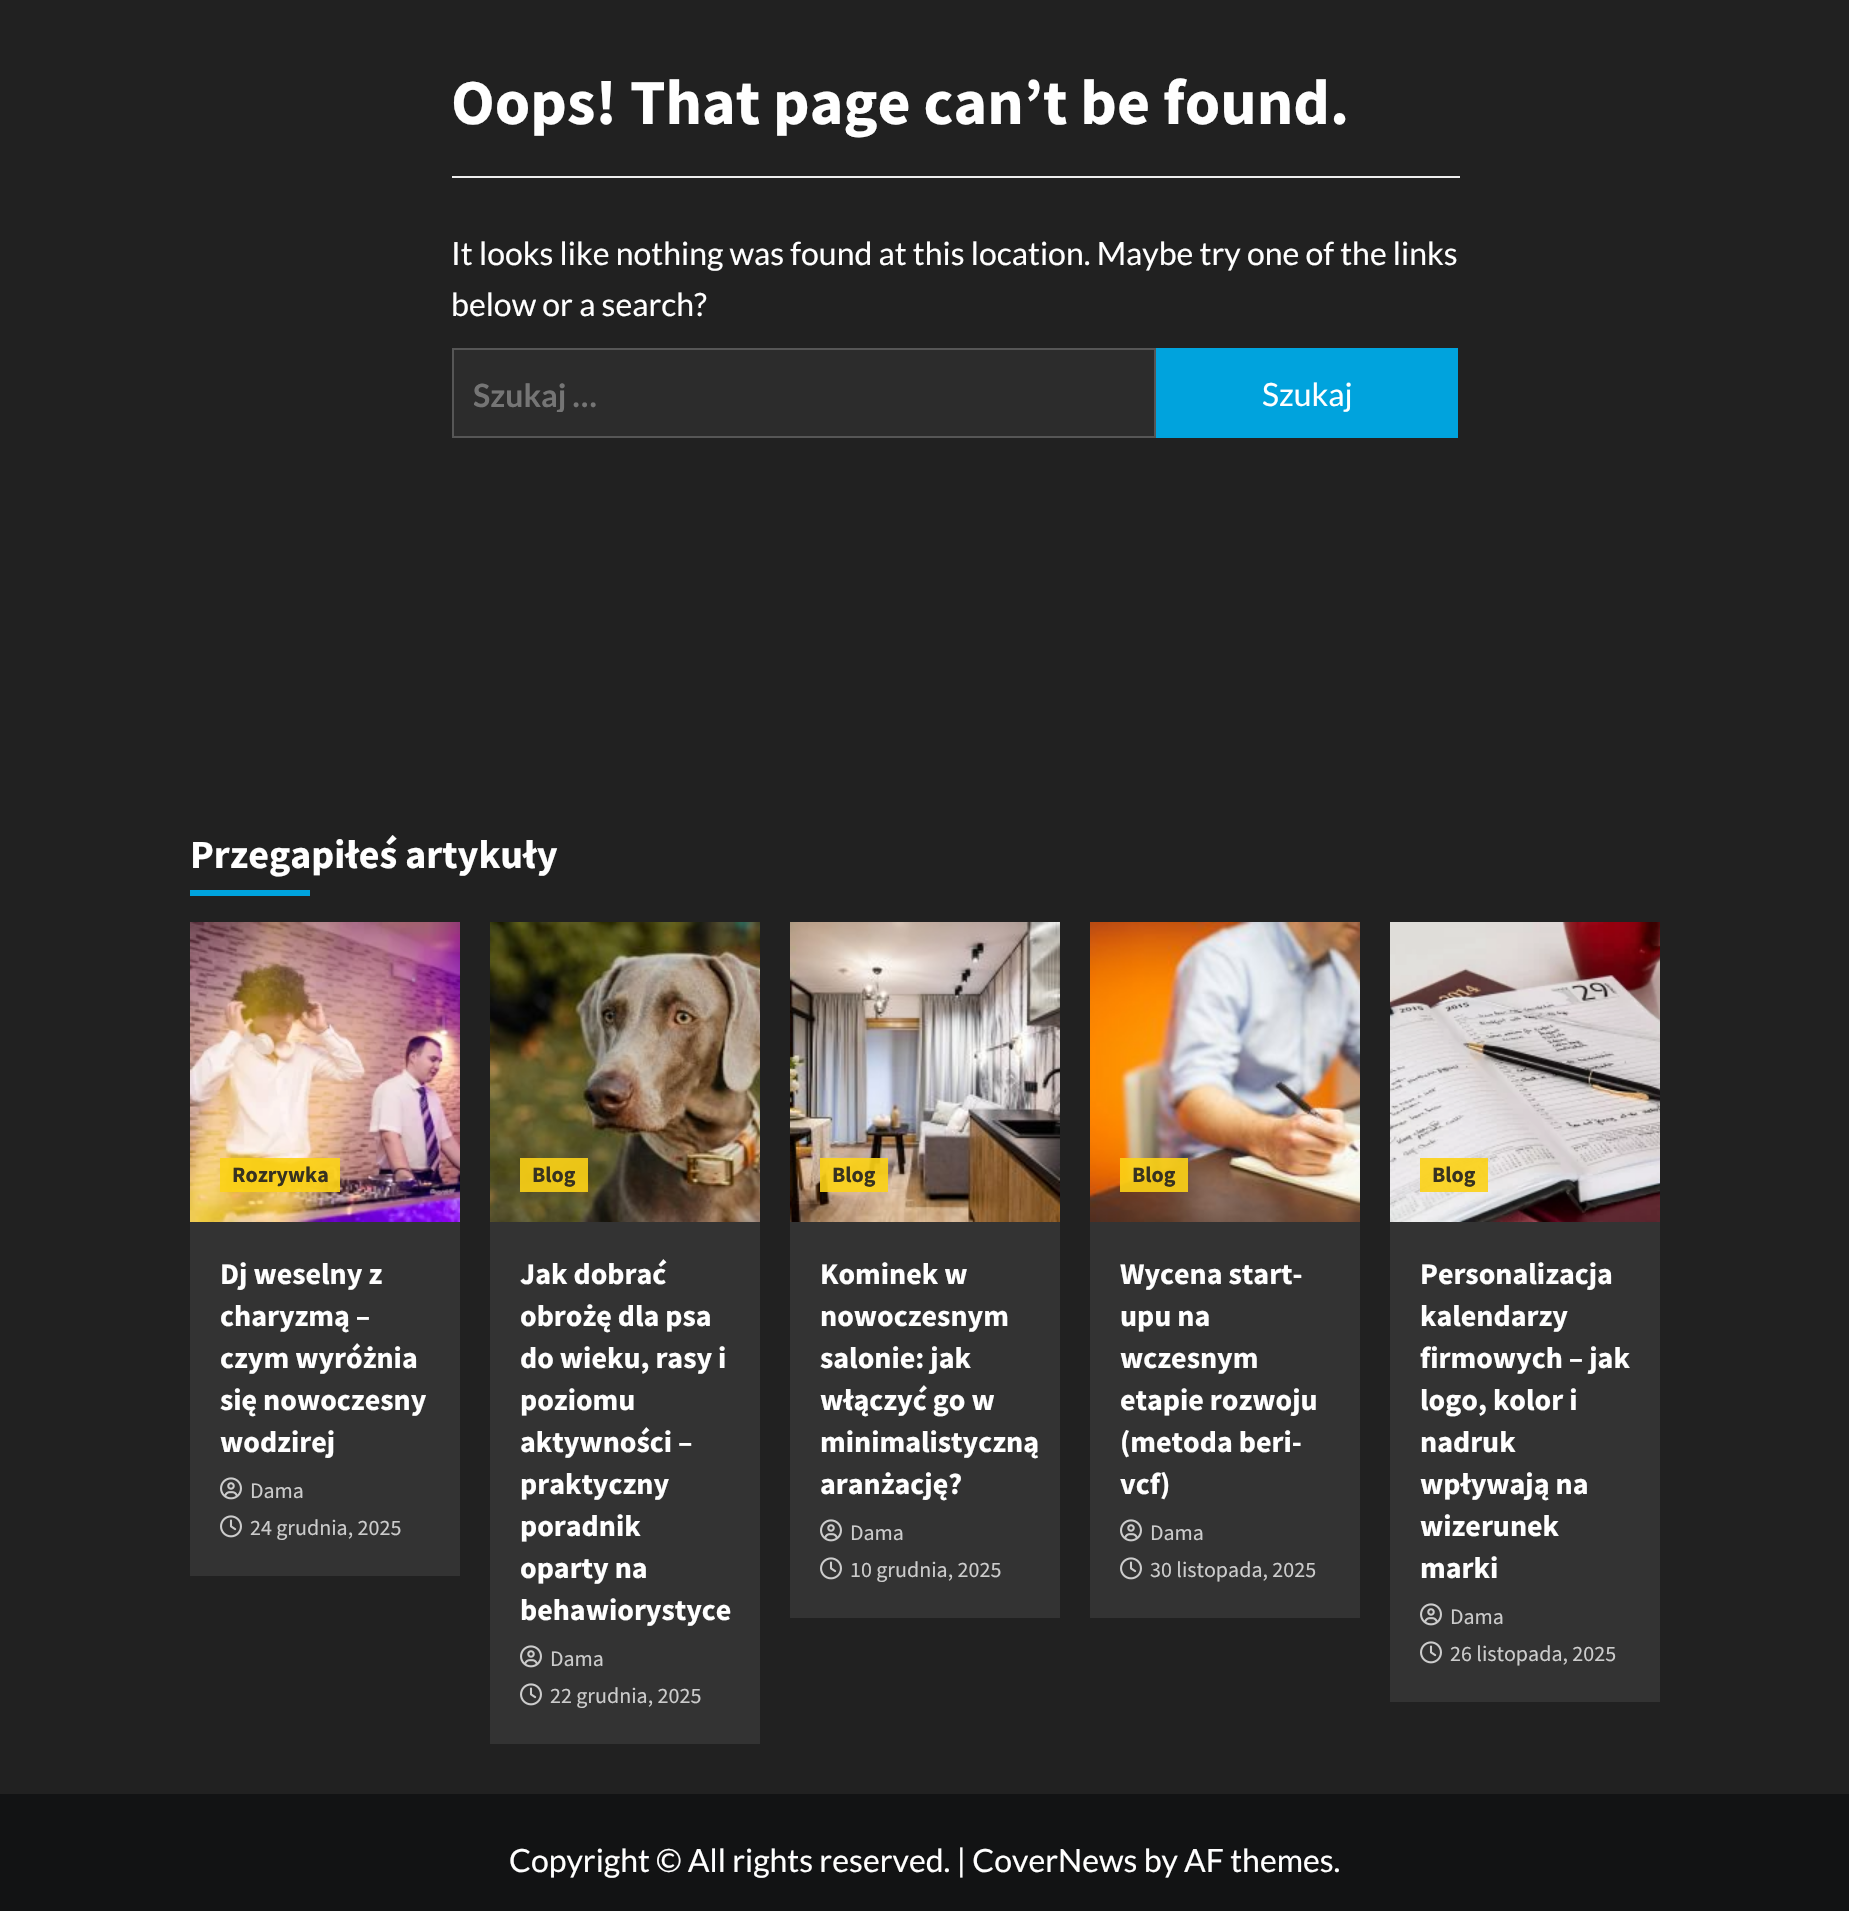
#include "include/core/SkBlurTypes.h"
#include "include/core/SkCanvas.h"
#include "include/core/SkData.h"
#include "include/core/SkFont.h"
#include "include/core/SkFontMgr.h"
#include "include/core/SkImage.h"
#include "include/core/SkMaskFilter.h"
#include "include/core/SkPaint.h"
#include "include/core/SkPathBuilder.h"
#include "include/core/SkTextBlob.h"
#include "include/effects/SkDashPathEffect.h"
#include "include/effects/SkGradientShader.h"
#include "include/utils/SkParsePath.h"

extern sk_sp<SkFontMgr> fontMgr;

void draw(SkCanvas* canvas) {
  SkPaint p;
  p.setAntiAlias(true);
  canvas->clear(SkColorSetRGB(33, 33, 33));
  p.setColor(SkColorSetRGB(238, 238, 238));
  canvas->drawRect(SkRect::MakeLTRB(452, 176, 1460, 178), p);
  p.setColor(SkColorSetRGB(44, 44, 44));
  canvas->drawRect(SkRect::MakeLTRB(453, 349, 1155, 437), p);
  p.setStyle(SkPaint::kStroke_Style);
  p.setStrokeWidth(2);
  p.setColor(SkColorSetRGB(86, 86, 86));
  canvas->drawRect(SkRect::MakeLTRB(453, 349, 1155, 437), p);
  p.setStyle(SkPaint::kFill_Style);
  p.setColor(SkColorSetRGB(0, 163, 221));
  canvas->drawRect(SkRect::MakeLTRB(1156, 348, 1458, 438), p);
  canvas->drawRect(SkRect::MakeLTRB(190, 890, 310, 896), p);
  p.setColor(SkColorSetRGB(51, 51, 51));
  canvas->drawRect(SkRect::MakeLTRB(190, 1222, 460, 1576), p);
  canvas->drawImageRect(SkImages::DeferredFromEncodedData(SkData::MakeFromFileName("images/1.png")), SkRect::MakeLTRB(190, 922, 460, 1222), SkSamplingOptions());
  p.setColor(SkColorSetARGB(230, 252, 210, 21));
  canvas->drawRect(SkRect::MakeLTRB(220, 1158, 340, 1192), p);
  canvas->drawImageRect(SkImages::DeferredFromEncodedData(SkData::MakeFromFileName("images/2.png")), SkRect::MakeLTRB(220, 1477, 242, 1500), SkSamplingOptions());
  canvas->drawImageRect(SkImages::DeferredFromEncodedData(SkData::MakeFromFileName("images/3.png")), SkRect::MakeLTRB(220, 1515, 242, 1538), SkSamplingOptions());
  p.setColor(SkColorSetRGB(51, 51, 51));
  canvas->drawRect(SkRect::MakeLTRB(490, 1222, 760, 1744), p);
  canvas->drawImageRect(SkImages::DeferredFromEncodedData(SkData::MakeFromFileName("images/4.png")), SkRect::MakeLTRB(490, 922, 760, 1222), SkSamplingOptions());
  p.setColor(SkColorSetARGB(230, 252, 210, 21));
  canvas->drawRect(SkRect::MakeLTRB(520, 1158, 588, 1192), p);
  canvas->drawImageRect(SkImages::DeferredFromEncodedData(SkData::MakeFromFileName("images/2.png")), SkRect::MakeLTRB(520, 1645, 542, 1668), SkSamplingOptions());
  canvas->drawImageRect(SkImages::DeferredFromEncodedData(SkData::MakeFromFileName("images/3.png")), SkRect::MakeLTRB(520, 1683, 542, 1706), SkSamplingOptions());
  p.setColor(SkColorSetRGB(51, 51, 51));
  canvas->drawRect(SkRect::MakeLTRB(790, 1222, 1060, 1618), p);
  canvas->drawImageRect(SkImages::DeferredFromEncodedData(SkData::MakeFromFileName("images/5.png")), SkRect::MakeLTRB(790, 922, 1060, 1222), SkSamplingOptions());
  p.setColor(SkColorSetARGB(230, 252, 210, 21));
  canvas->drawRect(SkRect::MakeLTRB(820, 1158, 888, 1192), p);
  canvas->drawImageRect(SkImages::DeferredFromEncodedData(SkData::MakeFromFileName("images/2.png")), SkRect::MakeLTRB(820, 1519, 842, 1542), SkSamplingOptions());
  canvas->drawImageRect(SkImages::DeferredFromEncodedData(SkData::MakeFromFileName("images/3.png")), SkRect::MakeLTRB(820, 1557, 842, 1580), SkSamplingOptions());
  p.setColor(SkColorSetRGB(51, 51, 51));
  canvas->drawRect(SkRect::MakeLTRB(1090, 1222, 1360, 1618), p);
  canvas->drawImageRect(SkImages::DeferredFromEncodedData(SkData::MakeFromFileName("images/6.png")), SkRect::MakeLTRB(1090, 922, 1360, 1222), SkSamplingOptions());
  p.setColor(SkColorSetARGB(230, 252, 210, 21));
  canvas->drawRect(SkRect::MakeLTRB(1120, 1158, 1188, 1192), p);
  canvas->drawImageRect(SkImages::DeferredFromEncodedData(SkData::MakeFromFileName("images/2.png")), SkRect::MakeLTRB(1120, 1519, 1142, 1542), SkSamplingOptions());
  canvas->drawImageRect(SkImages::DeferredFromEncodedData(SkData::MakeFromFileName("images/3.png")), SkRect::MakeLTRB(1120, 1557, 1142, 1580), SkSamplingOptions());
  p.setColor(SkColorSetRGB(51, 51, 51));
  canvas->drawRect(SkRect::MakeLTRB(1390, 1222, 1660, 1702), p);
  canvas->drawImageRect(SkImages::DeferredFromEncodedData(SkData::MakeFromFileName("images/7.png")), SkRect::MakeLTRB(1390, 922, 1660, 1222), SkSamplingOptions());
  p.setColor(SkColorSetARGB(230, 252, 210, 21));
  canvas->drawRect(SkRect::MakeLTRB(1420, 1158, 1488, 1192), p);
  canvas->drawImageRect(SkImages::DeferredFromEncodedData(SkData::MakeFromFileName("images/2.png")), SkRect::MakeLTRB(1420, 1603, 1442, 1626), SkSamplingOptions());
  canvas->drawImageRect(SkImages::DeferredFromEncodedData(SkData::MakeFromFileName("images/3.png")), SkRect::MakeLTRB(1420, 1641, 1442, 1664), SkSamplingOptions());
  p.setColor(SkColorSetRGB(18, 19, 20));
  canvas->drawRect(SkRect::MakeLTRB(0, 1794, 1849, 1911), p);
  SkFont font1(fontMgr->matchFamilyStyle("Source Sans Pro", SkFontStyle::Bold()), 64);
  font1.setSubpixel(true);
  p.setColor(SK_ColorWHITE);
  canvas->drawString("Oops! That page can’t be found.", 451, 124, font1, p);
  SkFont font2(fontMgr->matchFamilyStyle("Lato", SkFontStyle::Normal()), 32);
  font2.setSubpixel(true);
  canvas->drawString("It looks like nothing was found at this location. Maybe try one of the links", 451, 265, font2, p);
  canvas->drawString("below or a search?", 451, 316, font2, p);
  canvas->save();
  canvas->clipRect(SkRect::MakeLTRB(474, 374, 1126, 412));
  SkFont font3(fontMgr->matchFamilyStyle("Lato", SkFontStyle::Bold()), 32);
  font3.setSubpixel(true);
  p.setColor(SkColorSetRGB(117, 117, 117));
  canvas->drawString("Szukaj …", 473, 407, font3, p);
  canvas->restore();
  p.setColor(SK_ColorWHITE);
  canvas->drawString("Szukaj", 1262, 406, font2, p);
  SkFont font4(fontMgr->matchFamilyStyle("Source Sans Pro", SkFontStyle::Bold()), 40);
  font4.setSubpixel(true);
  canvas->drawString("Przegapiłeś artykuły", 190, 868, font4, p);
  SkFont font5(fontMgr->matchFamilyStyle("Source Sans Pro", SkFontStyle::Bold()), 22);
  font5.setSubpixel(true);
  p.setColor(SkColorSetRGB(55, 50, 32));
  canvas->drawString("Rozrywka", 232, 1182, font5, p);
  SkFont font6(fontMgr->matchFamilyStyle("Source Sans Pro", SkFontStyle::Bold()), 30);
  font6.setSubpixel(true);
  p.setColor(SK_ColorWHITE);
  canvas->drawString("Dj weselny z", 220, 1284, font6, p);
  canvas->drawString("charyzmą –", 220, 1326, font6, p);
  canvas->drawString("czym wyróżnia", 220, 1368, font6, p);
  canvas->drawString("się nowoczesny", 220, 1410, font6, p);
  canvas->drawString("wodzirej", 220, 1452, font6, p);
  SkFont font7(fontMgr->matchFamilyStyle("Source Sans Pro", SkFontStyle::Normal()), 22);
  font7.setSubpixel(true);
  p.setColor(SkColorSetRGB(204, 204, 204));
  canvas->drawString("Dama", 250, 1498, font7, p);
  canvas->drawString("24 grudnia, 2025", 250, 1535, font7, p);
  p.setColor(SkColorSetRGB(55, 50, 32));
  canvas->drawString("Blog", 532, 1182, font5, p);
  p.setColor(SK_ColorWHITE);
  canvas->drawString("Jak dobrać", 520, 1284, font6, p);
  canvas->drawString("obrożę dla psa", 520, 1326, font6, p);
  canvas->drawString("do wieku, rasy i", 520, 1368, font6, p);
  canvas->drawString("poziomu", 520, 1410, font6, p);
  canvas->drawString("aktywności –", 520, 1452, font6, p);
  canvas->drawString("praktyczny", 520, 1494, font6, p);
  canvas->drawString("poradnik", 520, 1536, font6, p);
  canvas->drawString("oparty na", 520, 1578, font6, p);
  canvas->drawString("behawiorystyce", 520, 1620, font6, p);
  p.setColor(SkColorSetRGB(204, 204, 204));
  canvas->drawString("Dama", 550, 1666, font7, p);
  canvas->drawString("22 grudnia, 2025", 550, 1703, font7, p);
  p.setColor(SkColorSetRGB(55, 50, 32));
  canvas->drawString("Blog", 832, 1182, font5, p);
  p.setColor(SK_ColorWHITE);
  canvas->drawString("Kominek w", 820, 1284, font6, p);
  canvas->drawString("nowoczesnym", 820, 1326, font6, p);
  canvas->drawString("salonie: jak", 820, 1368, font6, p);
  canvas->drawString("włączyć go w", 820, 1410, font6, p);
  canvas->drawString("minimalistyczną", 820, 1452, font6, p);
  canvas->drawString("aranżację?", 820, 1494, font6, p);
  p.setColor(SkColorSetRGB(204, 204, 204));
  canvas->drawString("Dama", 850, 1540, font7, p);
  canvas->drawString("10 grudnia, 2025", 850, 1577, font7, p);
  p.setColor(SkColorSetRGB(55, 50, 32));
  canvas->drawString("Blog", 1132, 1182, font5, p);
  p.setColor(SK_ColorWHITE);
  canvas->drawString("Wycena start-", 1120, 1284, font6, p);
  canvas->drawString("upu na", 1120, 1326, font6, p);
  canvas->drawString("wczesnym", 1120, 1368, font6, p);
  canvas->drawString("etapie rozwoju", 1120, 1410, font6, p);
  canvas->drawString("(metoda beri-", 1120, 1452, font6, p);
  canvas->drawString("vcf)", 1120, 1494, font6, p);
  p.setColor(SkColorSetRGB(204, 204, 204));
  canvas->drawString("Dama", 1150, 1540, font7, p);
  canvas->drawString("30 listopada, 2025", 1150, 1577, font7, p);
  p.setColor(SkColorSetRGB(55, 50, 32));
  canvas->drawString("Blog", 1432, 1182, font5, p);
  p.setColor(SK_ColorWHITE);
  canvas->drawString("Personalizacja", 1420, 1284, font6, p);
  canvas->drawString("kalendarzy", 1420, 1326, font6, p);
  canvas->drawString("firmowych – jak", 1420, 1368, font6, p);
  canvas->drawString("logo, kolor i", 1420, 1410, font6, p);
  canvas->drawString("nadruk", 1420, 1452, font6, p);
  canvas->drawString("wpływają na", 1420, 1494, font6, p);
  canvas->drawString("wizerunek", 1420, 1536, font6, p);
  canvas->drawString("marki", 1420, 1578, font6, p);
  p.setColor(SkColorSetRGB(204, 204, 204));
  canvas->drawString("Dama", 1450, 1624, font7, p);
  canvas->drawString("26 listopada, 2025", 1450, 1661, font7, p);
  p.setColor(SK_ColorWHITE);
  canvas->drawString("Copyright © All rights reserved. | CoverNews by AF themes.", 509, 1872, font2, p);
}
